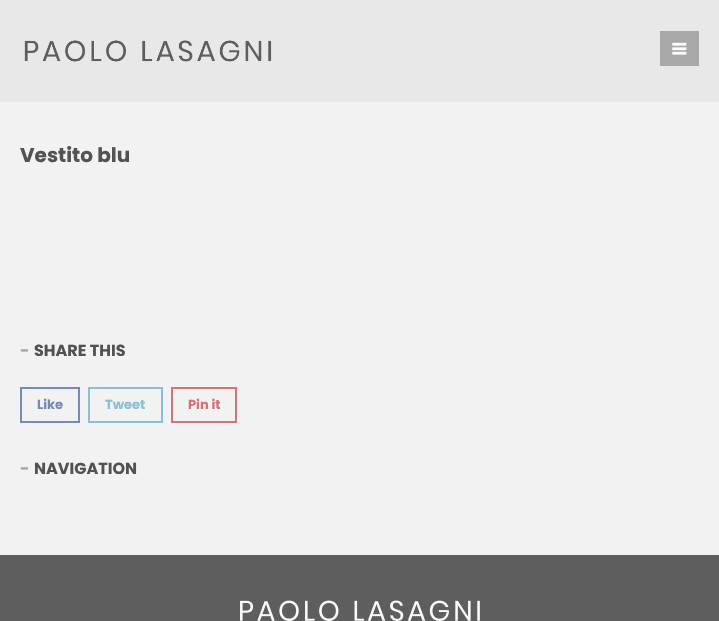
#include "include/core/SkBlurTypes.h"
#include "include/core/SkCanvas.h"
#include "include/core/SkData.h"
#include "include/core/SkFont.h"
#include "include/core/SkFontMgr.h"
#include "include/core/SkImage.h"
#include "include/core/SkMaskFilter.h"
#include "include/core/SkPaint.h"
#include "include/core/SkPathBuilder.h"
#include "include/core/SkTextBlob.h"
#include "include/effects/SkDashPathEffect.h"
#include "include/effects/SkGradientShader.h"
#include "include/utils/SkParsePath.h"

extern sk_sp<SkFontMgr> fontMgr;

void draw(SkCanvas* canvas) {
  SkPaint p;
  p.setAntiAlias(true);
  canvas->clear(SkColorSetRGB(242, 242, 242));
  p.setColor(SkColorSetRGB(232, 232, 232));
  canvas->drawRect(SkRect::MakeLTRB(0, 0, 719, 102), p);
  canvas->drawImageRect(SkImages::DeferredFromEncodedData(SkData::MakeFromFileName("images/1.png")), SkRect::MakeLTRB(24, 40, 272, 62), SkSamplingOptions());
  p.setColor(SkColorSetRGB(168, 168, 168));
  canvas->drawRect(SkRect::MakeLTRB(660, 31, 699, 66), p);
  canvas->drawImageRect(SkImages::DeferredFromEncodedData(SkData::MakeFromFileName("images/2.png")), SkRect::MakeLTRB(672, 42, 687, 55), SkSamplingOptions());
  p.setStyle(SkPaint::kStroke_Style);
  p.setStrokeWidth(2);
  p.setColor(SkColorSetRGB(117, 138, 182));
  canvas->drawRect(SkRect::MakeLTRB(21, 388, 79, 422), p);
  p.setColor(SkColorSetRGB(137, 191, 216));
  canvas->drawRect(SkRect::MakeLTRB(89, 388, 162, 422), p);
  p.setColor(SkColorSetRGB(211, 114, 121));
  canvas->drawRect(SkRect::MakeLTRB(172, 388, 236, 422), p);
  p.setStyle(SkPaint::kFill_Style);
  p.setColor(SkColorSetRGB(94, 94, 94));
  canvas->drawRect(SkRect::MakeLTRB(0, 555, 719, 621), p);
  canvas->drawImageRect(SkImages::DeferredFromEncodedData(SkData::MakeFromFileName("images/3.png")), SkRect::MakeLTRB(240, 600, 480, 621), SkSamplingOptions());
  SkFont font1(fontMgr->matchFamilyStyle("Poppins", SkFontStyle::Bold()), 20);
  font1.setSubpixel(true);
  p.setColor(SkColorSetRGB(82, 82, 82));
  canvas->drawString("Vestito blu", 20, 162, font1, p);
  SkFont font2(fontMgr->matchFamilyStyle("Poppins", SkFontStyle::Bold()), 16);
  font2.setSubpixel(true);
  p.setColor(SkColorSetRGB(168, 168, 168));
  canvas->drawString("-", 20, 356, font2, p);
  p.setColor(SkColorSetRGB(82, 82, 82));
  canvas->drawString("SHARE THIS", 34, 356, font2, p);
  SkFont font3(fontMgr->matchFamilyStyle("Poppins", SkFontStyle::Bold()), 13);
  font3.setSubpixel(true);
  p.setColor(SkColorSetRGB(117, 138, 182));
  canvas->drawString("Like", 37, 409, font3, p);
  p.setColor(SkColorSetRGB(137, 191, 216));
  canvas->drawString("Tweet", 105, 409, font3, p);
  p.setColor(SkColorSetRGB(211, 114, 121));
  canvas->drawString("Pin it", 188, 409, font3, p);
  p.setColor(SkColorSetRGB(168, 168, 168));
  canvas->drawString("-", 20, 474, font2, p);
  p.setColor(SkColorSetRGB(82, 82, 82));
  canvas->drawString("NAVIGATION", 34, 474, font2, p);
}
